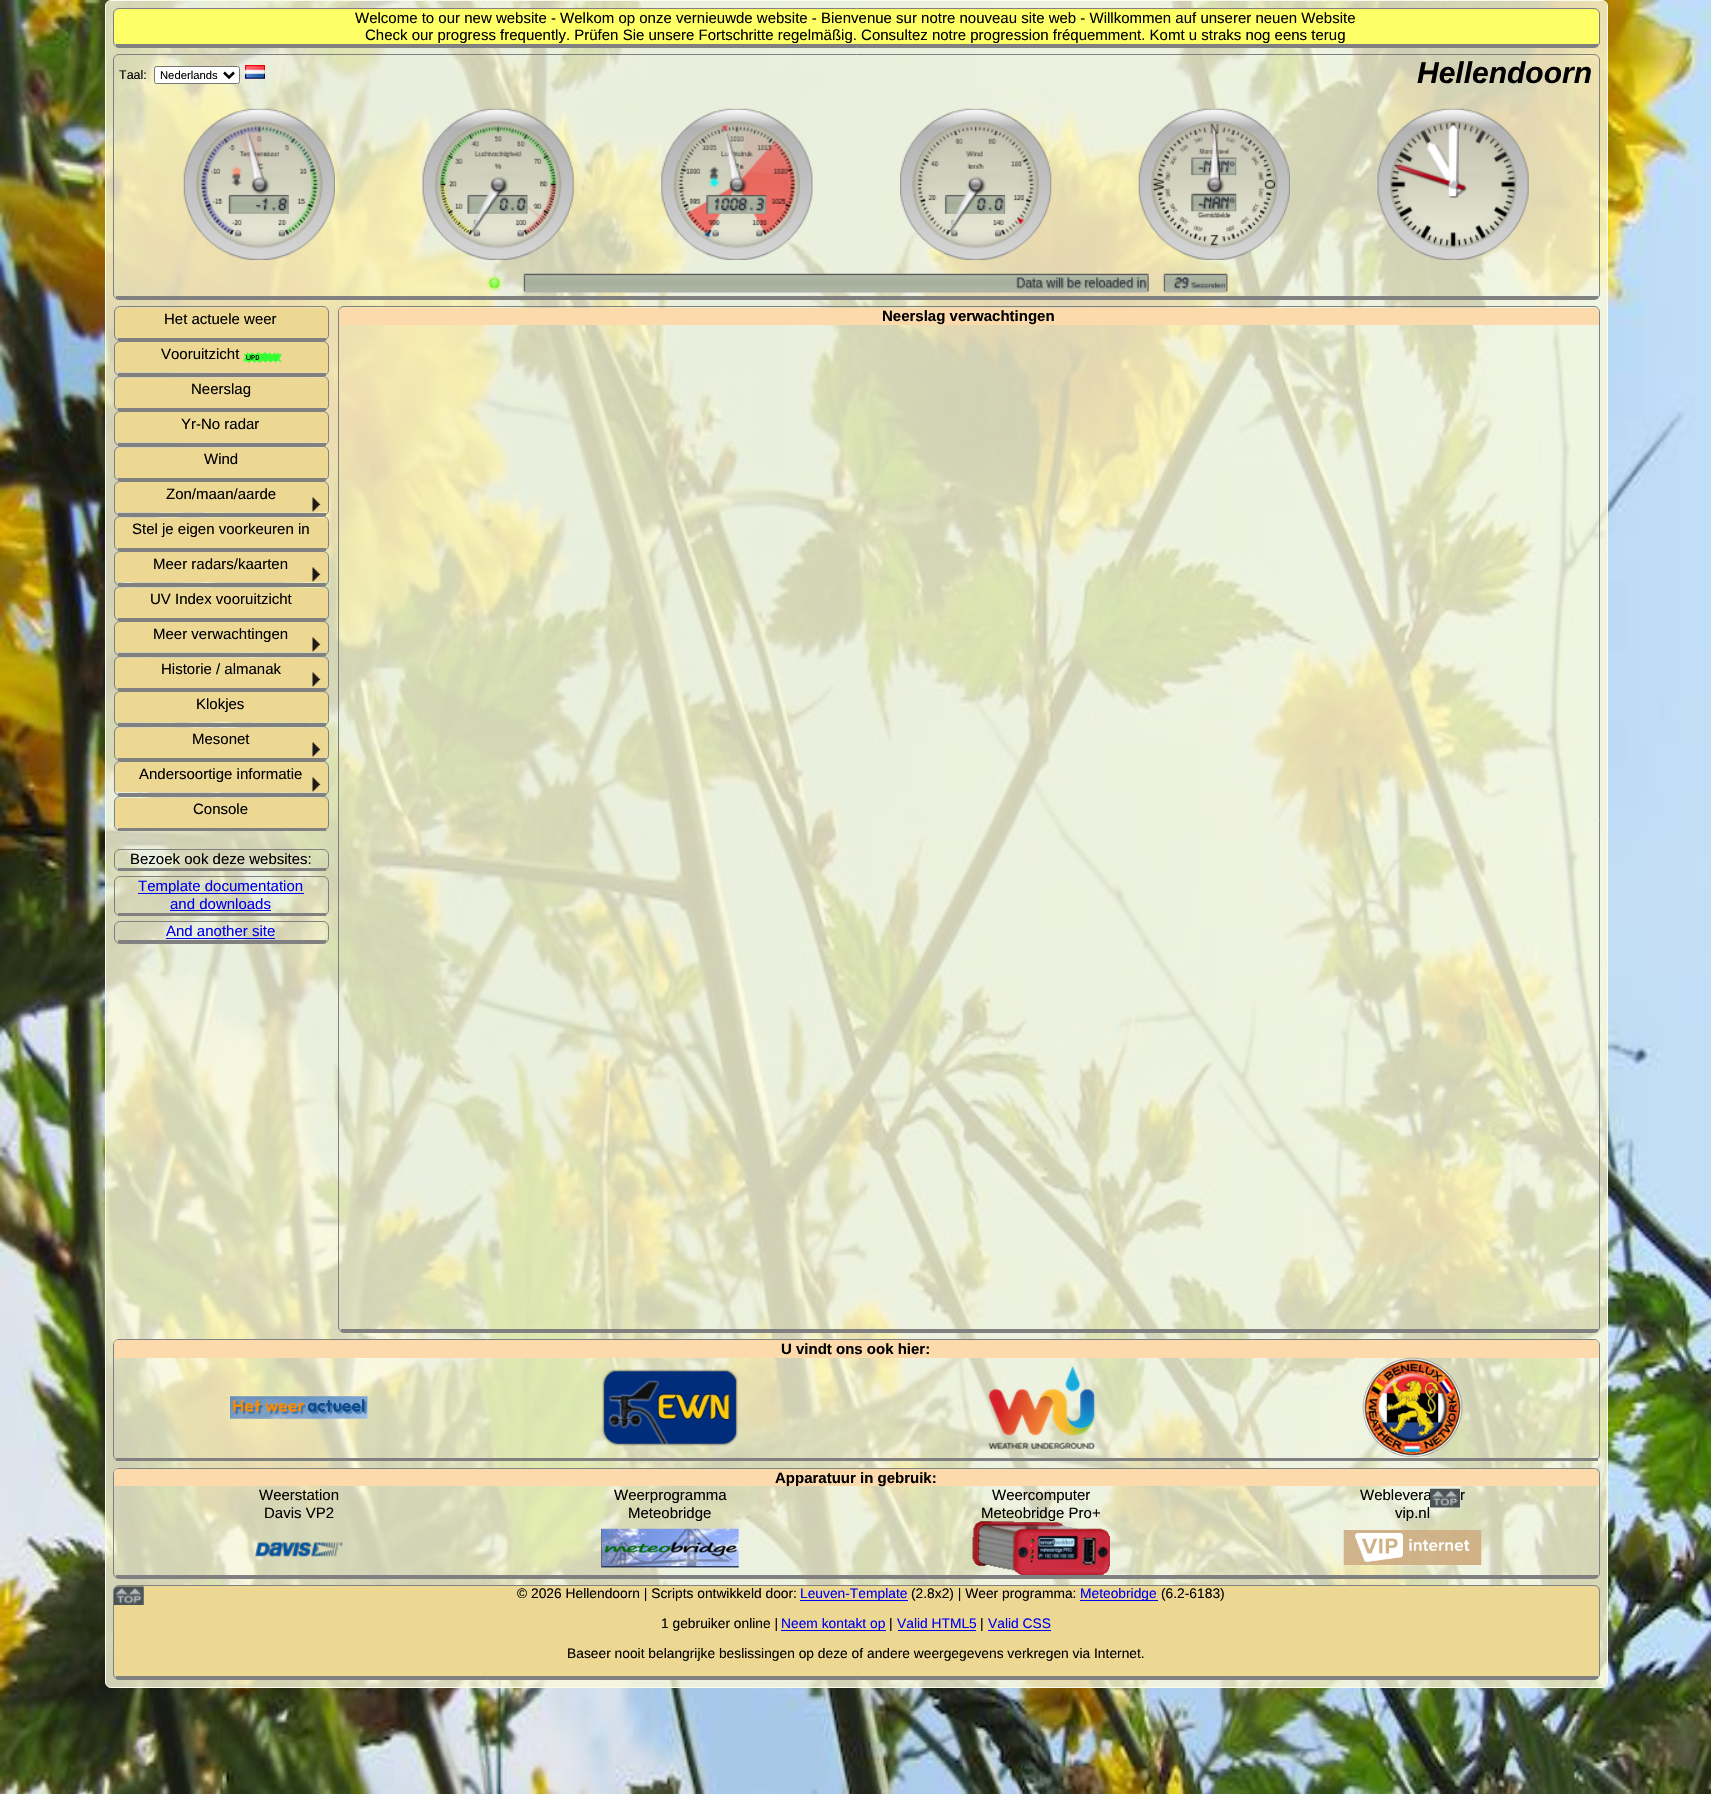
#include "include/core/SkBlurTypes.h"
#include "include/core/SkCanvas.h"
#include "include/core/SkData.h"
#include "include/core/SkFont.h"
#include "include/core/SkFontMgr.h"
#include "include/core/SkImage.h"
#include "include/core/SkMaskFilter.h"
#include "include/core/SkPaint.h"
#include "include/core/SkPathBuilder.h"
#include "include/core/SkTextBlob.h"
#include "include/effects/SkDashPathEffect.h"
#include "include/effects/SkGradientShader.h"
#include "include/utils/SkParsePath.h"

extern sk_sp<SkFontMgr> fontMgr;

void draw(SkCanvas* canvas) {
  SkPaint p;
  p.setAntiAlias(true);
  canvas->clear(SK_ColorWHITE);
  canvas->drawImageRect(SkImages::DeferredFromEncodedData(SkData::MakeFromFileName("images/1.png")), SkRect::MakeLTRB(0, 0, 1711, 1794), SkSamplingOptions());
  p.setColor(SkColorSetARGB(204, 253, 251, 220));
  canvas->drawRoundRect(SkRect::MakeLTRB(105.5f, 0.5f, 1607.5f, 1687.5f), 5.5f, 5.5f, p);
  p.setStyle(SkPaint::kStroke_Style);
  p.setStrokeWidth(1);
  p.setColor(SkColorSetRGB(253, 251, 235));
  canvas->drawRoundRect(SkRect::MakeLTRB(105.5f, 0.5f, 1607.5f, 1687.5f), 5.5f, 5.5f, p);
  p.setStyle(SkPaint::kFill_Style);
  p.setColor(SkColorSetRGB(255, 255, 102));
  canvas->drawPath(SkPathBuilder().moveTo(119, 9).lineTo(1594, 9).cubicTo(1597, 9, 1599, 11, 1599, 14).lineTo(1599, 41).cubicTo(1599, 43, 1597, 44, 1594, 44).lineTo(119, 44).cubicTo(116, 44, 114, 43, 114, 41).lineTo(114, 14).cubicTo(114, 11, 116, 9, 119, 9).close().detach(), p);
  p.setStyle(SkPaint::kStroke_Style);
  p.setColor(SkColorSetRGB(128, 128, 128));
  canvas->drawRoundRect(SkRect::MakeLTRB(113.5f, 8.5f, 1599.5f, 47.5f), 5.5f, 5.5f, p);
  p.setStyle(SkPaint::kFill_Style);
  canvas->drawRect(SkRect::MakeLTRB(116, 44, 1598, 47), p);
  p.setStyle(SkPaint::kStroke_Style);
  canvas->drawRoundRect(SkRect::MakeLTRB(113.5f, 54.5f, 1599.5f, 299.5f), 5.5f, 5.5f, p);
  p.setStyle(SkPaint::kFill_Style);
  canvas->drawRect(SkRect::MakeLTRB(116, 296, 1598, 299), p);
  p.setColor(SK_ColorWHITE);
  canvas->drawRoundRect(SkRect::MakeLTRB(154.5f, 66.5f, 239.5f, 83.5f), 2, 2, p);
  p.setStyle(SkPaint::kStroke_Style);
  p.setColor(SkColorSetRGB(118, 118, 118));
  canvas->drawRoundRect(SkRect::MakeLTRB(154.5f, 66.5f, 239.5f, 83.5f), 2, 2, p);
  p.setStrokeWidth(2.5f);
  p.setColor(SK_ColorBLACK);
  canvas->drawPath(SkPathBuilder().moveTo(224, 72.5f).lineTo(229, 77.5f).lineTo(234, 72.5f).detach(), p);
  canvas->drawImageRect(SkImages::DeferredFromEncodedData(SkData::MakeFromFileName("images/2.png")), SkRect::MakeLTRB(245, 65, 265, 79), SkSamplingOptions());
  canvas->drawImageRect(SkImages::DeferredFromEncodedData(SkData::MakeFromFileName("images/3.png")), SkRect::MakeLTRB(183, 108, 1529, 293), SkSamplingOptions());
  p.setStyle(SkPaint::kFill_Style);
  p.setColor(SkColorSetRGB(237, 216, 147));
  canvas->drawPath(SkPathBuilder().moveTo(120, 308).lineTo(322, 308).cubicTo(325, 308, 328, 310, 328, 312).lineTo(328, 335).cubicTo(328, 336, 325, 338, 322, 338).lineTo(120, 338).cubicTo(117, 338, 115, 336, 115, 335).lineTo(115, 312).cubicTo(115, 310, 117, 308, 120, 308).close().detach(), p);
  p.setStyle(SkPaint::kStroke_Style);
  p.setStrokeWidth(1);
  p.setColor(SkColorSetRGB(128, 128, 128));
  canvas->drawRoundRect(SkRect::MakeLTRB(114.5f, 306.5f, 328.5f, 340.5f), 5.5f, 5.5f, p);
  p.setStyle(SkPaint::kFill_Style);
  canvas->drawRect(SkRect::MakeLTRB(118, 338, 326, 341), p);
  p.setColor(SkColorSetRGB(237, 216, 147));
  canvas->drawPath(SkPathBuilder().moveTo(120, 342).lineTo(322, 342).cubicTo(325, 342, 328, 345, 328, 348).lineTo(328, 370).cubicTo(328, 371, 325, 372, 322, 372).lineTo(120, 372).cubicTo(117, 372, 115, 371, 115, 370).lineTo(115, 348).cubicTo(115, 345, 117, 342, 120, 342).close().detach(), p);
  p.setStyle(SkPaint::kStroke_Style);
  p.setColor(SkColorSetRGB(128, 128, 128));
  canvas->drawRoundRect(SkRect::MakeLTRB(114.5f, 341.5f, 328.5f, 375.5f), 5.5f, 5.5f, p);
  p.setStyle(SkPaint::kFill_Style);
  canvas->drawRect(SkRect::MakeLTRB(118, 373, 326, 376), p);
  canvas->drawImageRect(SkImages::DeferredFromEncodedData(SkData::MakeFromFileName("images/4.png")), SkRect::MakeLTRB(243, 352, 282, 363), SkSamplingOptions());
  p.setColor(SkColorSetRGB(237, 216, 147));
  canvas->drawPath(SkPathBuilder().moveTo(120, 378).lineTo(322, 378).cubicTo(325, 378, 328, 380, 328, 382).lineTo(328, 405).cubicTo(328, 406, 325, 408, 322, 408).lineTo(120, 408).cubicTo(117, 408, 115, 406, 115, 405).lineTo(115, 382).cubicTo(115, 380, 117, 378, 120, 378).close().detach(), p);
  p.setStyle(SkPaint::kStroke_Style);
  p.setColor(SkColorSetRGB(128, 128, 128));
  canvas->drawRoundRect(SkRect::MakeLTRB(114.5f, 376.5f, 328.5f, 410.5f), 5.5f, 5.5f, p);
  p.setStyle(SkPaint::kFill_Style);
  canvas->drawRect(SkRect::MakeLTRB(118, 408, 326, 411), p);
  p.setColor(SkColorSetRGB(237, 216, 147));
  canvas->drawPath(SkPathBuilder().moveTo(120, 412).lineTo(322, 412).cubicTo(325, 412, 328, 415, 328, 418).lineTo(328, 440).cubicTo(328, 441, 325, 442, 322, 442).lineTo(120, 442).cubicTo(117, 442, 115, 441, 115, 440).lineTo(115, 418).cubicTo(115, 415, 117, 412, 120, 412).close().detach(), p);
  p.setStyle(SkPaint::kStroke_Style);
  p.setColor(SkColorSetRGB(128, 128, 128));
  canvas->drawRoundRect(SkRect::MakeLTRB(114.5f, 411.5f, 328.5f, 445.5f), 5.5f, 5.5f, p);
  p.setStyle(SkPaint::kFill_Style);
  canvas->drawRect(SkRect::MakeLTRB(118, 443, 326, 446), p);
  p.setColor(SkColorSetRGB(237, 216, 147));
  canvas->drawPath(SkPathBuilder().moveTo(120, 448).lineTo(322, 448).cubicTo(325, 448, 328, 450, 328, 452).lineTo(328, 475).cubicTo(328, 476, 325, 478, 322, 478).lineTo(120, 478).cubicTo(117, 478, 115, 476, 115, 475).lineTo(115, 452).cubicTo(115, 450, 117, 448, 120, 448).close().detach(), p);
  p.setStyle(SkPaint::kStroke_Style);
  p.setColor(SkColorSetRGB(128, 128, 128));
  canvas->drawRoundRect(SkRect::MakeLTRB(114.5f, 446.5f, 328.5f, 480.5f), 5.5f, 5.5f, p);
  p.setStyle(SkPaint::kFill_Style);
  canvas->drawRect(SkRect::MakeLTRB(118, 478, 326, 481), p);
  p.setColor(SkColorSetRGB(237, 216, 147));
  canvas->drawPath(SkPathBuilder().moveTo(120, 482).lineTo(322, 482).cubicTo(325, 482, 328, 485, 328, 488).lineTo(328, 510).cubicTo(328, 511, 325, 512, 322, 512).lineTo(120, 512).cubicTo(117, 512, 115, 511, 115, 510).lineTo(115, 488).cubicTo(115, 485, 117, 482, 120, 482).close().detach(), p);
  canvas->drawImageRect(SkImages::DeferredFromEncodedData(SkData::MakeFromFileName("images/5.png")), SkRect::MakeLTRB(312, 497, 321, 512), SkSamplingOptions());
  p.setStyle(SkPaint::kStroke_Style);
  p.setColor(SkColorSetRGB(128, 128, 128));
  canvas->drawRoundRect(SkRect::MakeLTRB(114.5f, 481.5f, 328.5f, 515.5f), 5.5f, 5.5f, p);
  p.setStyle(SkPaint::kFill_Style);
  canvas->drawRect(SkRect::MakeLTRB(118, 513, 326, 516), p);
  p.setColor(SkColorSetRGB(237, 216, 147));
  canvas->drawPath(SkPathBuilder().moveTo(120, 518).lineTo(322, 518).cubicTo(325, 518, 328, 520, 328, 522).lineTo(328, 545).cubicTo(328, 546, 325, 548, 322, 548).lineTo(120, 548).cubicTo(117, 548, 115, 546, 115, 545).lineTo(115, 522).cubicTo(115, 520, 117, 518, 120, 518).close().detach(), p);
  p.setStyle(SkPaint::kStroke_Style);
  p.setColor(SkColorSetRGB(128, 128, 128));
  canvas->drawRoundRect(SkRect::MakeLTRB(114.5f, 516.5f, 328.5f, 550.5f), 5.5f, 5.5f, p);
  p.setStyle(SkPaint::kFill_Style);
  canvas->drawRect(SkRect::MakeLTRB(118, 548, 326, 551), p);
  p.setColor(SkColorSetRGB(237, 216, 147));
  canvas->drawPath(SkPathBuilder().moveTo(120, 552).lineTo(322, 552).cubicTo(325, 552, 328, 555, 328, 558).lineTo(328, 580).cubicTo(328, 581, 325, 582, 322, 582).lineTo(120, 582).cubicTo(117, 582, 115, 581, 115, 580).lineTo(115, 558).cubicTo(115, 555, 117, 552, 120, 552).close().detach(), p);
  canvas->drawImageRect(SkImages::DeferredFromEncodedData(SkData::MakeFromFileName("images/5.png")), SkRect::MakeLTRB(312, 567, 321, 582), SkSamplingOptions());
  p.setStyle(SkPaint::kStroke_Style);
  p.setColor(SkColorSetRGB(128, 128, 128));
  canvas->drawRoundRect(SkRect::MakeLTRB(114.5f, 551.5f, 328.5f, 585.5f), 5.5f, 5.5f, p);
  p.setStyle(SkPaint::kFill_Style);
  canvas->drawRect(SkRect::MakeLTRB(118, 583, 326, 586), p);
  p.setColor(SkColorSetRGB(237, 216, 147));
  canvas->drawPath(SkPathBuilder().moveTo(120, 588).lineTo(322, 588).cubicTo(325, 588, 328, 590, 328, 592).lineTo(328, 615).cubicTo(328, 616, 325, 618, 322, 618).lineTo(120, 618).cubicTo(117, 618, 115, 616, 115, 615).lineTo(115, 592).cubicTo(115, 590, 117, 588, 120, 588).close().detach(), p);
  p.setStyle(SkPaint::kStroke_Style);
  p.setColor(SkColorSetRGB(128, 128, 128));
  canvas->drawRoundRect(SkRect::MakeLTRB(114.5f, 586.5f, 328.5f, 620.5f), 5.5f, 5.5f, p);
  p.setStyle(SkPaint::kFill_Style);
  canvas->drawRect(SkRect::MakeLTRB(118, 618, 326, 621), p);
  p.setColor(SkColorSetRGB(237, 216, 147));
  canvas->drawPath(SkPathBuilder().moveTo(120, 622).lineTo(322, 622).cubicTo(325, 622, 328, 625, 328, 628).lineTo(328, 650).cubicTo(328, 651, 325, 652, 322, 652).lineTo(120, 652).cubicTo(117, 652, 115, 651, 115, 650).lineTo(115, 628).cubicTo(115, 625, 117, 622, 120, 622).close().detach(), p);
  canvas->drawImageRect(SkImages::DeferredFromEncodedData(SkData::MakeFromFileName("images/5.png")), SkRect::MakeLTRB(312, 637, 321, 652), SkSamplingOptions());
  p.setStyle(SkPaint::kStroke_Style);
  p.setColor(SkColorSetRGB(128, 128, 128));
  canvas->drawRoundRect(SkRect::MakeLTRB(114.5f, 621.5f, 328.5f, 655.5f), 5.5f, 5.5f, p);
  p.setStyle(SkPaint::kFill_Style);
  canvas->drawRect(SkRect::MakeLTRB(118, 653, 326, 656), p);
  p.setColor(SkColorSetRGB(237, 216, 147));
  canvas->drawPath(SkPathBuilder().moveTo(120, 658).lineTo(322, 658).cubicTo(325, 658, 328, 660, 328, 662).lineTo(328, 685).cubicTo(328, 686, 325, 688, 322, 688).lineTo(120, 688).cubicTo(117, 688, 115, 686, 115, 685).lineTo(115, 662).cubicTo(115, 660, 117, 658, 120, 658).close().detach(), p);
  canvas->drawImageRect(SkImages::DeferredFromEncodedData(SkData::MakeFromFileName("images/5.png")), SkRect::MakeLTRB(312, 672, 321, 687), SkSamplingOptions());
  p.setStyle(SkPaint::kStroke_Style);
  p.setColor(SkColorSetRGB(128, 128, 128));
  canvas->drawRoundRect(SkRect::MakeLTRB(114.5f, 656.5f, 328.5f, 690.5f), 5.5f, 5.5f, p);
  p.setStyle(SkPaint::kFill_Style);
  canvas->drawRect(SkRect::MakeLTRB(118, 688, 326, 691), p);
  p.setColor(SkColorSetRGB(237, 216, 147));
  canvas->drawPath(SkPathBuilder().moveTo(120, 692).lineTo(322, 692).cubicTo(325, 692, 328, 695, 328, 698).lineTo(328, 720).cubicTo(328, 721, 325, 722, 322, 722).lineTo(120, 722).cubicTo(117, 722, 115, 721, 115, 720).lineTo(115, 698).cubicTo(115, 695, 117, 692, 120, 692).close().detach(), p);
  p.setStyle(SkPaint::kStroke_Style);
  p.setColor(SkColorSetRGB(128, 128, 128));
  canvas->drawRoundRect(SkRect::MakeLTRB(114.5f, 691.5f, 328.5f, 725.5f), 5.5f, 5.5f, p);
  p.setStyle(SkPaint::kFill_Style);
  canvas->drawRect(SkRect::MakeLTRB(118, 723, 326, 726), p);
  p.setColor(SkColorSetRGB(237, 216, 147));
  canvas->drawPath(SkPathBuilder().moveTo(120, 728).lineTo(322, 728).cubicTo(325, 728, 328, 730, 328, 732).lineTo(328, 755).cubicTo(328, 756, 325, 758, 322, 758).lineTo(120, 758).cubicTo(117, 758, 115, 756, 115, 755).lineTo(115, 732).cubicTo(115, 730, 117, 728, 120, 728).close().detach(), p);
  canvas->drawImageRect(SkImages::DeferredFromEncodedData(SkData::MakeFromFileName("images/5.png")), SkRect::MakeLTRB(312, 742, 321, 757), SkSamplingOptions());
  p.setStyle(SkPaint::kStroke_Style);
  p.setColor(SkColorSetRGB(128, 128, 128));
  canvas->drawRoundRect(SkRect::MakeLTRB(114.5f, 726.5f, 328.5f, 760.5f), 5.5f, 5.5f, p);
  p.setStyle(SkPaint::kFill_Style);
  canvas->drawRect(SkRect::MakeLTRB(118, 758, 326, 761), p);
  p.setColor(SkColorSetRGB(237, 216, 147));
  canvas->drawPath(SkPathBuilder().moveTo(120, 762).lineTo(322, 762).cubicTo(325, 762, 328, 765, 328, 768).lineTo(328, 790).cubicTo(328, 791, 325, 792, 322, 792).lineTo(120, 792).cubicTo(117, 792, 115, 791, 115, 790).lineTo(115, 768).cubicTo(115, 765, 117, 762, 120, 762).close().detach(), p);
  canvas->drawImageRect(SkImages::DeferredFromEncodedData(SkData::MakeFromFileName("images/6.png")), SkRect::MakeLTRB(312, 777, 321, 792), SkSamplingOptions());
  p.setStyle(SkPaint::kStroke_Style);
  p.setColor(SkColorSetRGB(128, 128, 128));
  canvas->drawRoundRect(SkRect::MakeLTRB(114.5f, 761.5f, 328.5f, 795.5f), 5.5f, 5.5f, p);
  p.setStyle(SkPaint::kFill_Style);
  canvas->drawRect(SkRect::MakeLTRB(118, 793, 326, 796), p);
  p.setColor(SkColorSetRGB(237, 216, 147));
  canvas->drawPath(SkPathBuilder().moveTo(120, 798).lineTo(322, 798).cubicTo(325, 798, 328, 800, 328, 802).lineTo(328, 825).cubicTo(328, 826, 325, 828, 322, 828).lineTo(120, 828).cubicTo(117, 828, 115, 826, 115, 825).lineTo(115, 802).cubicTo(115, 800, 117, 798, 120, 798).close().detach(), p);
  p.setStyle(SkPaint::kStroke_Style);
  p.setColor(SkColorSetRGB(128, 128, 128));
  canvas->drawRoundRect(SkRect::MakeLTRB(114.5f, 796.5f, 328.5f, 830.5f), 5.5f, 5.5f, p);
  p.setStyle(SkPaint::kFill_Style);
  canvas->drawRect(SkRect::MakeLTRB(118, 828, 326, 831), p);
  p.setStyle(SkPaint::kStroke_Style);
  canvas->drawRoundRect(SkRect::MakeLTRB(114.5f, 849.5f, 328.5f, 870.5f), 5.5f, 5.5f, p);
  p.setStyle(SkPaint::kFill_Style);
  canvas->drawRect(SkRect::MakeLTRB(118, 868, 326, 871), p);
  p.setStyle(SkPaint::kStroke_Style);
  canvas->drawRoundRect(SkRect::MakeLTRB(114.5f, 876.5f, 328.5f, 915.5f), 5.5f, 5.5f, p);
  p.setStyle(SkPaint::kFill_Style);
  canvas->drawRect(SkRect::MakeLTRB(118, 913, 326, 916), p);
  p.setColor(SkColorSetRGB(0, 0, 238));
  canvas->drawRect(SkRect::MakeLTRB(138, 893, 304, 894), p);
  canvas->drawRect(SkRect::MakeLTRB(170, 910, 271, 911), p);
  p.setStyle(SkPaint::kStroke_Style);
  p.setColor(SkColorSetRGB(128, 128, 128));
  canvas->drawRoundRect(SkRect::MakeLTRB(114.5f, 921.5f, 328.5f, 943.5f), 5.5f, 5.5f, p);
  p.setStyle(SkPaint::kFill_Style);
  canvas->drawRect(SkRect::MakeLTRB(118, 940, 326, 943), p);
  p.setColor(SkColorSetRGB(0, 0, 238));
  canvas->drawRect(SkRect::MakeLTRB(166, 938, 275, 939), p);
  p.setStyle(SkPaint::kStroke_Style);
  p.setColor(SkColorSetRGB(128, 128, 128));
  canvas->drawRoundRect(SkRect::MakeLTRB(338.5f, 306.5f, 1599.5f, 1332.5f), 5.5f, 5.5f, p);
  p.setStyle(SkPaint::kFill_Style);
  canvas->drawRect(SkRect::MakeLTRB(341, 1329, 1598, 1332), p);
  p.setColor(SkColorSetRGB(252, 218, 171));
  canvas->drawPath(SkPathBuilder().moveTo(339, 311).cubicTo(339, 310, 340, 309, 342, 308).lineTo(1596, 308).cubicTo(1598, 309, 1599, 311, 1599, 312).lineTo(1599, 325).lineTo(339, 325).close().detach(), p);
  p.setStyle(SkPaint::kStroke_Style);
  p.setColor(SkColorSetRGB(128, 128, 128));
  canvas->drawRoundRect(SkRect::MakeLTRB(113.5f, 1339.5f, 1599.5f, 1460.5f), 5.5f, 5.5f, p);
  p.setStyle(SkPaint::kFill_Style);
  canvas->drawRect(SkRect::MakeLTRB(116, 1458, 1598, 1461), p);
  p.setColor(SkColorSetRGB(252, 218, 171));
  canvas->drawPath(SkPathBuilder().moveTo(119, 1340).cubicTo(117, 1340, 115, 1341, 114, 1343).lineTo(114, 1358).lineTo(1599, 1358).lineTo(1599, 1345).cubicTo(1599, 1342, 1597, 1340, 1594, 1340).close().detach(), p);
  canvas->drawImageRect(SkImages::DeferredFromEncodedData(SkData::MakeFromFileName("images/7.png")), SkRect::MakeLTRB(230, 1396, 368, 1419), SkSamplingOptions());
  canvas->drawImageRect(SkImages::DeferredFromEncodedData(SkData::MakeFromFileName("images/8.png")), SkRect::MakeLTRB(602, 1369, 738, 1446), SkSamplingOptions());
  canvas->drawImageRect(SkImages::DeferredFromEncodedData(SkData::MakeFromFileName("images/9.png")), SkRect::MakeLTRB(988, 1366, 1096, 1449), SkSamplingOptions());
  canvas->drawImageRect(SkImages::DeferredFromEncodedData(SkData::MakeFromFileName("images/10.png")), SkRect::MakeLTRB(1362, 1357, 1463, 1458), SkSamplingOptions());
  p.setStyle(SkPaint::kStroke_Style);
  p.setColor(SkColorSetRGB(128, 128, 128));
  canvas->drawRoundRect(SkRect::MakeLTRB(113.5f, 1468.5f, 1599.5f, 1578.5f), 5.5f, 5.5f, p);
  p.setStyle(SkPaint::kFill_Style);
  canvas->drawRect(SkRect::MakeLTRB(116, 1575, 1598, 1578), p);
  p.setColor(SkColorSetRGB(252, 218, 171));
  canvas->drawPath(SkPathBuilder().moveTo(114, 1472).cubicTo(114, 1471, 116, 1469, 117, 1469).lineTo(1595, 1469).cubicTo(1597, 1470, 1599, 1472, 1599, 1474).lineTo(1599, 1486).lineTo(114, 1486).close().detach(), p);
  canvas->drawImageRect(SkImages::DeferredFromEncodedData(SkData::MakeFromFileName("images/11.png")), SkRect::MakeLTRB(255, 1542, 343, 1557), SkSamplingOptions());
  canvas->drawImageRect(SkImages::DeferredFromEncodedData(SkData::MakeFromFileName("images/12.png")), SkRect::MakeLTRB(601, 1528, 739, 1568), SkSamplingOptions());
  canvas->drawImageRect(SkImages::DeferredFromEncodedData(SkData::MakeFromFileName("images/14.png")), SkRect::MakeLTRB(1343, 1530, 1482, 1565), SkSamplingOptions());
  p.setColor(SkColorSetRGB(237, 216, 147));
  canvas->drawPath(SkPathBuilder().moveTo(119, 1586).lineTo(1594, 1586).cubicTo(1597, 1586, 1599, 1588, 1599, 1591).lineTo(1599, 1674).cubicTo(1599, 1675, 1597, 1676, 1594, 1676).lineTo(119, 1676).cubicTo(116, 1676, 114, 1675, 114, 1674).lineTo(114, 1591).cubicTo(114, 1588, 116, 1586, 119, 1586).close().detach(), p);
  p.setStyle(SkPaint::kStroke_Style);
  p.setColor(SkColorSetRGB(128, 128, 128));
  canvas->drawRoundRect(SkRect::MakeLTRB(113.5f, 1585.5f, 1599.5f, 1679.5f), 5.5f, 5.5f, p);
  p.setStyle(SkPaint::kFill_Style);
  canvas->drawRect(SkRect::MakeLTRB(116, 1676, 1598, 1679), p);
  canvas->drawImageRect(SkImages::DeferredFromEncodedData(SkData::MakeFromFileName("images/16.png")), SkRect::MakeLTRB(113, 1586, 144, 1605), SkSamplingOptions());
  p.setColor(SkColorSetRGB(0, 0, 238));
  canvas->drawRect(SkRect::MakeLTRB(800, 1600, 908, 1601), p);
  canvas->drawRect(SkRect::MakeLTRB(1080, 1600, 1158, 1601), p);
  canvas->drawRect(SkRect::MakeLTRB(781, 1630, 886, 1631), p);
  canvas->drawRect(SkRect::MakeLTRB(898, 1630, 976, 1631), p);
  canvas->drawRect(SkRect::MakeLTRB(988, 1630, 1051, 1631), p);
  SkFont font1(fontMgr->matchFamilyStyle("Liberation Sans", SkFontStyle::Normal()), 15);
  font1.setSubpixel(true);
  p.setColor(SK_ColorBLACK);
  canvas->drawString("Welcome to our new website - Welkom op onze vernieuwde website - Bienvenue sur notre nouveau site web - Willkommen auf unserer neuen Website", 355, 23, font1, p);
  canvas->drawString("Check our progress frequently. Prüfen Sie unsere Fortschritte regelmäßig. Consultez notre progression fréquemment. Komt u straks nog eens terug", 365, 40, font1, p);
  SkFont font2(fontMgr->matchFamilyStyle("Liberation Sans", SkFontStyle::Normal()), 12.5f);
  font2.setSubpixel(true);
  canvas->drawString("Taal:", 119, 79, font2, p);
  SkFont font3(fontMgr->matchFamilyStyle("Liberation Sans", SkFontStyle::Normal()), 11.25f);
  font3.setSubpixel(true);
  canvas->drawString("Nederlands", 160, 79, font3, p);
  SkFont font4(fontMgr->matchFamilyStyle("Liberation Sans", SkFontStyle::BoldItalic()), 30);
  font4.setSubpixel(true);
  canvas->drawString("Hellendoorn", 1417, 83, font4, p);
  canvas->drawString("Het actuele weer", 164, 324, font1, p);
  canvas->drawString("Vooruitzicht", 161, 359, font1, p);
  canvas->drawString("Neerslag", 191, 394, font1, p);
  canvas->drawString("Yr-No radar", 181, 429, font1, p);
  canvas->drawString("Wind", 204, 464, font1, p);
  canvas->drawString("Zon/maan/aarde", 166, 499, font1, p);
  canvas->drawString("Stel je eigen voorkeuren in", 132, 534, font1, p);
  canvas->drawString("Meer radars/kaarten", 153, 569, font1, p);
  canvas->drawString("UV Index vooruitzicht", 150, 604, font1, p);
  canvas->drawString("Meer verwachtingen", 153, 639, font1, p);
  canvas->drawString("Historie / almanak", 161, 674, font1, p);
  canvas->drawString("Klokjes", 196, 709, font1, p);
  canvas->drawString("Mesonet", 192, 744, font1, p);
  canvas->drawString("Andersoortige informatie", 139, 779, font1, p);
  canvas->drawString("Console", 193, 814, font1, p);
  canvas->drawString("Bezoek ook deze websites:", 130, 864, font1, p);
  p.setColor(SkColorSetRGB(0, 0, 238));
  canvas->drawString("Template documentation", 138, 891, font1, p);
  canvas->drawString("and downloads", 170, 909, font1, p);
  canvas->drawString("And another site", 166, 936, font1, p);
  SkFont font5(fontMgr->matchFamilyStyle("Liberation Sans", SkFontStyle::Bold()), 15);
  font5.setSubpixel(true);
  p.setColor(SK_ColorBLACK);
  canvas->drawString("Neerslag verwachtingen", 882, 321, font5, p);
  canvas->drawString("U vindt ons ook hier:", 781, 1354, font5, p);
  canvas->drawString("Apparatuur in gebruik:", 775, 1483, font5, p);
  canvas->drawString("Weerstation", 259, 1500, font1, p);
  canvas->drawString("Davis VP2", 264, 1518, font1, p);
  canvas->drawString("Weerprogramma", 614, 1500, font1, p);
  canvas->drawString("Meteobridge", 628, 1518, font1, p);
  canvas->drawString("Weercomputer", 992, 1500, font1, p);
  canvas->drawString("Meteobridge Pro+", 981, 1518, font1, p);
  canvas->drawString("Weblevera", 1360, 1500, font1, p);
  canvas->drawString("r", 1460, 1500, font1, p);
  canvas->drawString("vip.nl", 1395, 1518, font1, p);
  canvas->drawImageRect(SkImages::DeferredFromEncodedData(SkData::MakeFromFileName("images/13.png")), SkRect::MakeLTRB(972, 1521, 1110, 1575), SkSamplingOptions());
  canvas->drawImageRect(SkImages::DeferredFromEncodedData(SkData::MakeFromFileName("images/15.png")), SkRect::MakeLTRB(1430, 1488, 1460, 1508), SkSamplingOptions());
  SkFont font6(fontMgr->matchFamilyStyle("Liberation Sans", SkFontStyle::Normal()), 13.8f);
  font6.setSubpixel(true);
  canvas->drawString("© 2026 Hellendoorn | Scripts ontwikkeld door:", 517, 1598, font6, p);
  p.setColor(SkColorSetRGB(0, 0, 238));
  canvas->drawString("Leuven-Template", 800, 1598, font6, p);
  p.setColor(SK_ColorBLACK);
  canvas->drawString("(2.8x2) | Weer programma:", 911, 1598, font6, p);
  p.setColor(SkColorSetRGB(0, 0, 238));
  canvas->drawString("Meteobridge", 1080, 1598, font6, p);
  p.setColor(SK_ColorBLACK);
  canvas->drawString("(6.2-6183)", 1161, 1598, font6, p);
  canvas->drawString("1 gebruiker online |", 661, 1628, font6, p);
  p.setColor(SkColorSetRGB(0, 0, 238));
  canvas->drawString("Neem kontakt op", 781, 1628, font6, p);
  p.setColor(SK_ColorBLACK);
  canvas->drawString("|", 889, 1628, font6, p);
  p.setColor(SkColorSetRGB(0, 0, 238));
  canvas->drawString("Valid HTML5", 897, 1628, font6, p);
  p.setColor(SK_ColorBLACK);
  canvas->drawString("|", 980, 1628, font6, p);
  p.setColor(SkColorSetRGB(0, 0, 238));
  canvas->drawString("Valid CSS", 988, 1628, font6, p);
  p.setColor(SK_ColorBLACK);
  canvas->drawString("Baseer nooit belangrijke beslissingen op deze of andere weergegevens verkregen via Internet.", 567, 1658, font6, p);
}
